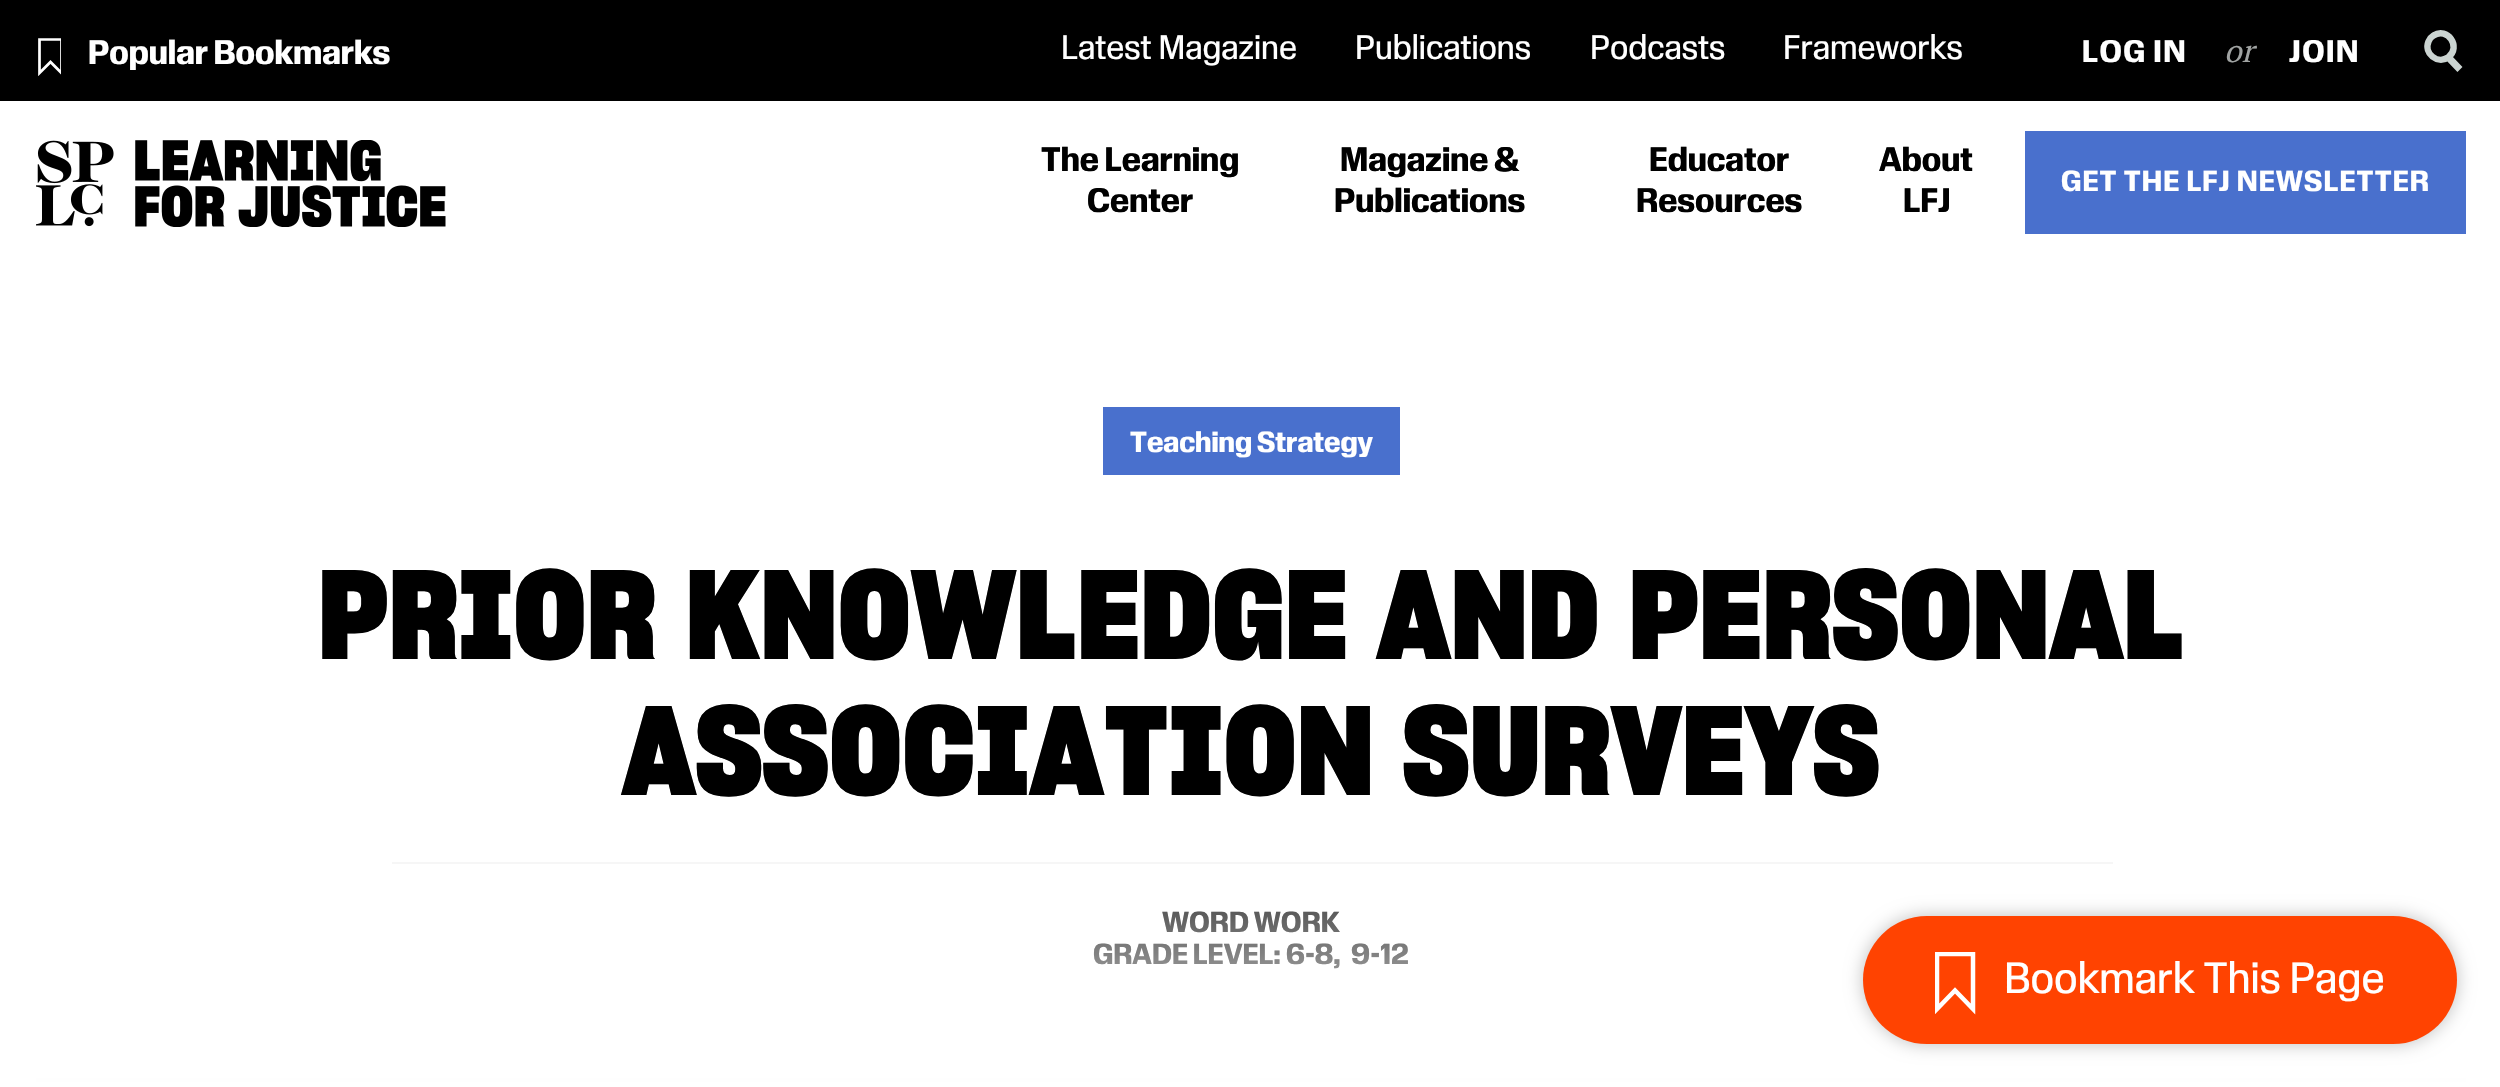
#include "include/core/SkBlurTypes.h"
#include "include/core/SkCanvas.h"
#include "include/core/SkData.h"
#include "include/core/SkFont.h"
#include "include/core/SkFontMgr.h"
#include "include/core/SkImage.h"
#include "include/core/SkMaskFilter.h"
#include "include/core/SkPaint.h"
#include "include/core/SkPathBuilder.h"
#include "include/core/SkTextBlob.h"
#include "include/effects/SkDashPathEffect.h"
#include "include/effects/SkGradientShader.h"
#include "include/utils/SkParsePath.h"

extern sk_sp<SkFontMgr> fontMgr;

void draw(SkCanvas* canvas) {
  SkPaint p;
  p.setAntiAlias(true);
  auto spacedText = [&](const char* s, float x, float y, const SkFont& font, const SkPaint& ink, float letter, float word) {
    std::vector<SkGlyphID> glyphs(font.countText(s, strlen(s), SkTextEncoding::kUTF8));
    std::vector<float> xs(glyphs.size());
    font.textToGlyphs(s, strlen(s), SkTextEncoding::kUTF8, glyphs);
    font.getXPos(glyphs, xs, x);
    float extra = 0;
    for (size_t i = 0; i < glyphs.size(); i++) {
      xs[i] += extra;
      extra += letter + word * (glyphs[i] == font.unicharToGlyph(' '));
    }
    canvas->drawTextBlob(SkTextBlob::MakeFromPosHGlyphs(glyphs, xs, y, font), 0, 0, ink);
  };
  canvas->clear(SK_ColorWHITE);
  p.setColor(SK_ColorBLACK);
  canvas->drawRect(SkRect::MakeLTRB(0, 0, 2500, 101), p);
  canvas->save();
  canvas->clipRect(SkRect::MakeLTRB(38, 38, 61, 77));
  p.setStyle(SkPaint::kStroke_Style);
  p.setStrokeWidth(2.7f);
  p.setColor(SK_ColorWHITE);
  canvas->drawPath(SkPathBuilder().moveTo(39.5f, 73).lineTo(39.5f, 39.5f).lineTo(61.5f, 39.5f).lineTo(61.5f, 73).lineTo(50.5f, 62).close().detach(), p);
  canvas->restore();
  p.setStrokeWidth(6.4f);
  p.setColor(SkColorSetRGB(203, 212, 209));
  canvas->drawPath(SkPathBuilder().moveTo(2448.5f, 57).cubicTo(2461.5f, 47, 2447.5f, 26.5f, 2433.5f, 35.5f).cubicTo(2431, 37, 2429.5f, 39, 2428.5f, 41.5f).cubicTo(2423.5f, 53.5f, 2437.5f, 64.5f, 2448, 57.5f).lineTo(2457.5f, 67.5f).lineTo(2458, 67).close().detach(), p);
  canvas->drawImageRect(SkImages::DeferredFromEncodedData(SkData::MakeFromFileName("images/1.png")), SkRect::MakeLTRB(36, 140, 114, 227), SkSamplingOptions());
  canvas->drawImageRect(SkImages::DeferredFromEncodedData(SkData::MakeFromFileName("images/2.png")), SkRect::MakeLTRB(135, 140, 446, 227), SkSamplingOptions());
  p.setStyle(SkPaint::kFill_Style);
  p.setColor(SkColorSetRGB(73, 112, 205));
  canvas->drawRect(SkRect::MakeLTRB(2025, 131, 2466, 234), p);
  canvas->drawRect(SkRect::MakeLTRB(1103, 407, 1400, 475), p);
  p.setColor(SkColorSetRGB(246, 246, 246));
  canvas->drawRect(SkRect::MakeLTRB(392, 862, 2113, 864), p);
  p.setColor(SkColorSetRGB(216, 216, 216));
  canvas->drawRect(SkRect::MakeLTRB(36, 1078, 2466, 1085), p);
  SkFont font1(fontMgr->matchFamilyStyle("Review", SkFontStyle::Bold()), 31.5f);
  font1.setSubpixel(true);
  p.setColor(SK_ColorWHITE);
  canvas->drawString("Popular Bookmarks", 88, 64, font1, p);
  SkFont font2(fontMgr->matchFamilyStyle("Review", SkFontStyle::Normal()), 31.5f);
  font2.setSubpixel(true);
  canvas->drawString("Latest Magazine", 1061, 59, font2, p);
  canvas->drawString("Publications", 1355, 59, font2, p);
  canvas->drawString("Podcasts", 1590, 59, font2, p);
  canvas->drawString("Frameworks", 1783, 59, font2, p);
  SkFont font3(fontMgr->matchFamilyStyle("Review", SkFontStyle::Bold()), 29);
  font3.setSubpixel(true);
  spacedText("LOG IN", 2082, 62, font3, p, 1.5f, 0);
  SkFont font4(fontMgr->matchFamilyStyle("PT Serif", SkFontStyle::Italic()), 31.5f);
  font4.setSubpixel(true);
  p.setColor(SkColorSetRGB(160, 163, 162));
  canvas->drawString("or", 2224, 62, font4, p);
  p.setColor(SK_ColorWHITE);
  spacedText("JOIN", 2289, 62, font3, p, 1.5f, 0);
  p.setColor(SK_ColorBLACK);
  canvas->drawString("The Learning", 1041, 171, font1, p);
  canvas->drawString("Center", 1087, 212, font1, p);
  canvas->drawString("Magazine &", 1340, 171, font1, p);
  canvas->drawString("Publications", 1334, 212, font1, p);
  canvas->drawString("Educator", 1649, 171, font1, p);
  canvas->drawString("Resources", 1636, 212, font1, p);
  canvas->drawString("About", 1879, 171, font1, p);
  canvas->drawString("LFJ", 1903, 212, font1, p);
  SkFont font5(fontMgr->matchFamilyStyle("Review", SkFontStyle::Bold()), 27);
  font5.setSubpixel(true);
  p.setColor(SK_ColorWHITE);
  spacedText("GET THE LFJ NEWSLETTER", 2061, 191, font5, p, 1.15f, 0);
  canvas->drawString("Teaching Strategy", 1130, 452, font5, p);
  SkFont font6(fontMgr->matchFamilyStyle("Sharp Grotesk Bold", SkFontStyle::Bold()), 123.75f);
  font6.setSubpixel(true);
  p.setColor(SK_ColorBLACK);
  canvas->drawString("PRIOR KNOWLEDGE AND PERSONAL", 318, 659, font6, p);
  canvas->drawString("ASSOCIATION SURVEYS", 622, 795, font6, p);
  canvas->drawString("WORD WORK", 1162, 932, font5, p);
  canvas->drawString("GRADE LEVEL: 6-8,", 1093, 964, font5, p);
  canvas->drawString("9-12", 1351, 964, font5, p);
  {
    const SkColor colors[] = {SkColorSetARGB(0, 255, 255, 255), SK_ColorWHITE};
    const float stops[] = {0, 1};
    const SkPoint ends[] = {{1251, 814}, {1251, 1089}};
    p.setShader(SkGradientShader::MakeLinear(ends, colors, stops, 2, SkTileMode::kClamp));
    p.setAlpha(255);
  }
  canvas->drawRect(SkRect::MakeLTRB(36, 911, 2466, 1085), p);
  p.setShader(nullptr);
  p.setColor(SkColorSetARGB(64, 0, 0, 0));
  p.setMaskFilter(SkMaskFilter::MakeBlur(kNormal_SkBlurStyle, 9));
  canvas->drawRoundRect(SkRect::MakeLTRB(1863, 916, 2457, 1044), 64, 64, p);
  p.setMaskFilter(nullptr);
  p.setColor(SkColorSetRGB(255, 67, 1));
  canvas->drawRoundRect(SkRect::MakeLTRB(1863, 916, 2457, 1044), 64, 64, p);
  canvas->save();
  canvas->clipRect(SkRect::MakeLTRB(1935, 952, 1976, 1015));
  p.setStyle(SkPaint::kStroke_Style);
  p.setStrokeWidth(4.5f);
  p.setColor(SK_ColorWHITE);
  canvas->drawPath(SkPathBuilder().moveTo(1937, 1009).lineTo(1937, 954).lineTo(1973, 954).lineTo(1973, 1009).lineTo(1955, 990.5f).close().detach(), p);
  canvas->restore();
  SkFont font7(fontMgr->matchFamilyStyle("Review", SkFontStyle::Normal()), 40.5f);
  font7.setSubpixel(true);
  p.setStyle(SkPaint::kFill_Style);
  canvas->drawString("Bookmark This Page", 2004, 993, font7, p);
}
